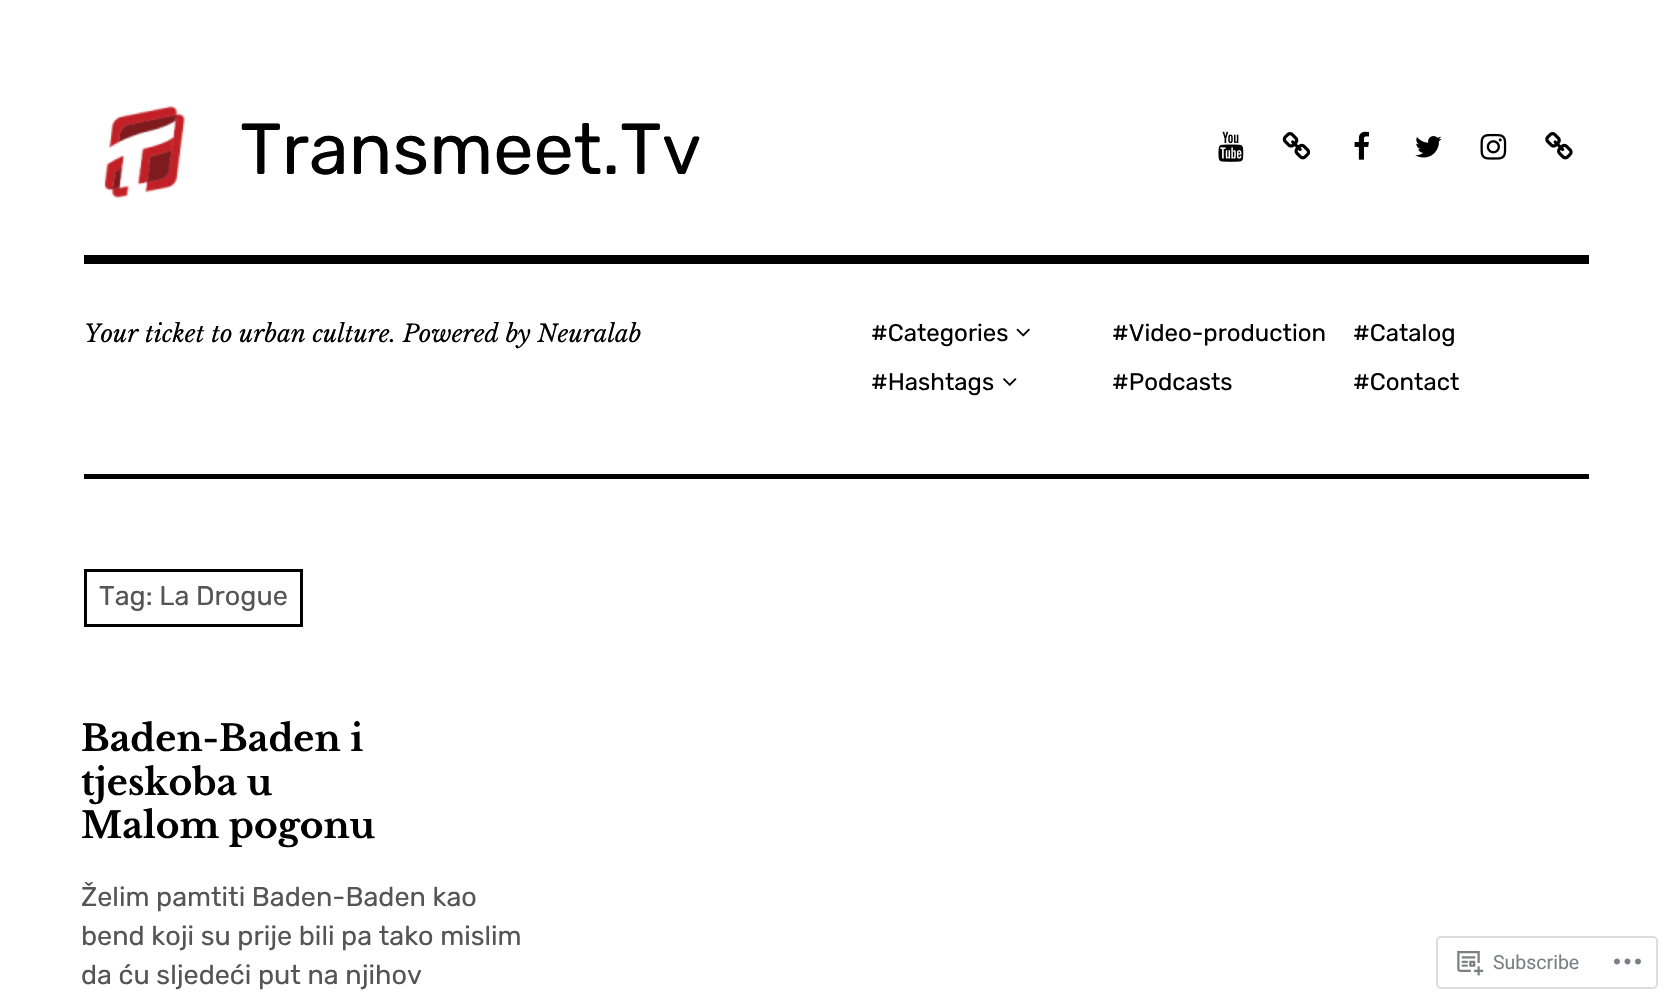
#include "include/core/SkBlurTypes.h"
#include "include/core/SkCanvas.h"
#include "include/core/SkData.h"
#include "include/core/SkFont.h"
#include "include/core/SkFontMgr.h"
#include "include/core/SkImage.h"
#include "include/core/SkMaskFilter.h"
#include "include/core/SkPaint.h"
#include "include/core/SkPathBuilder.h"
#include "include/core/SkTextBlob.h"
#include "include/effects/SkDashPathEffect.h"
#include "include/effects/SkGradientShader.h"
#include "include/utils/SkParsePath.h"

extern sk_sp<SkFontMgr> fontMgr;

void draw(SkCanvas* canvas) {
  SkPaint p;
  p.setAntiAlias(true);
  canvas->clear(SK_ColorWHITE);
  p.setColor(SK_ColorBLACK);
  canvas->drawRect(SkRect::MakeLTRB(84, 255, 1589, 264), p);
  canvas->drawImageRect(SkImages::DeferredFromEncodedData(SkData::MakeFromFileName("images/1.png")), SkRect::MakeLTRB(104, 106, 185, 199), SkSamplingOptions());
  canvas->drawImageRect(SkImages::DeferredFromEncodedData(SkData::MakeFromFileName("images/2.png")), SkRect::MakeLTRB(1218, 131, 1244, 162), SkSamplingOptions());
  canvas->drawImageRect(SkImages::DeferredFromEncodedData(SkData::MakeFromFileName("images/3.png")), SkRect::MakeLTRB(1282, 132, 1311, 160), SkSamplingOptions());
  canvas->drawImageRect(SkImages::DeferredFromEncodedData(SkData::MakeFromFileName("images/4.png")), SkRect::MakeLTRB(1354, 131, 1370, 160), SkSamplingOptions());
  canvas->drawImageRect(SkImages::DeferredFromEncodedData(SkData::MakeFromFileName("images/5.png")), SkRect::MakeLTRB(1415, 136, 1442, 158), SkSamplingOptions());
  canvas->drawImageRect(SkImages::DeferredFromEncodedData(SkData::MakeFromFileName("images/6.png")), SkRect::MakeLTRB(1480, 133, 1507, 160), SkSamplingOptions());
  canvas->drawImageRect(SkImages::DeferredFromEncodedData(SkData::MakeFromFileName("images/7.png")), SkRect::MakeLTRB(1545, 132, 1573, 160), SkSamplingOptions());
  canvas->drawImageRect(SkImages::DeferredFromEncodedData(SkData::MakeFromFileName("images/8.png")), SkRect::MakeLTRB(1016, 328, 1030, 337), SkSamplingOptions());
  canvas->drawImageRect(SkImages::DeferredFromEncodedData(SkData::MakeFromFileName("images/9.png")), SkRect::MakeLTRB(1003, 378, 1017, 386), SkSamplingOptions());
  canvas->drawRect(SkRect::MakeLTRB(84, 474, 1589, 479), p);
  p.setStyle(SkPaint::kStroke_Style);
  p.setStrokeWidth(3);
  canvas->drawRect(SkRect::MakeLTRB(85.5f, 570.5f, 301.5f, 625.5f), p);
  p.setStrokeWidth(2);
  p.setColor(SkColorSetRGB(221, 221, 223));
  canvas->drawRoundRect(SkRect::MakeLTRB(1437, 937, 1657, 988), 4, 4, p);
  canvas->drawImageRect(SkImages::DeferredFromEncodedData(SkData::MakeFromFileName("images/10.png")), SkRect::MakeLTRB(1457, 951, 1484, 976), SkSamplingOptions());
  canvas->drawImageRect(SkImages::DeferredFromEncodedData(SkData::MakeFromFileName("images/11.png")), SkRect::MakeLTRB(1614, 958, 1641, 965), SkSamplingOptions());
  SkFont font1(fontMgr->matchFamilyStyle("Rubik", SkFontStyle::Normal()), 72);
  font1.setSubpixel(true);
  p.setStyle(SkPaint::kFill_Style);
  p.setColor(SK_ColorBLACK);
  canvas->drawString("Transmeet.Tv", 240, 174, font1, p);
  SkFont font2(fontMgr->matchFamilyStyle("Libre Baskerville", SkFontStyle::Italic()), 24);
  font2.setSubpixel(true);
  canvas->drawString("Your ticket to urban culture. Powered by Neuralab", 84, 342, font2, p);
  SkFont font3(fontMgr->matchFamilyStyle("Rubik", SkFontStyle::Normal()), 24);
  font3.setSubpixel(true);
  canvas->drawString("#Categories", 871, 341, font3, p);
  canvas->drawString("#Hashtags", 871, 390, font3, p);
  canvas->drawString("#Video-production", 1112, 341, font3, p);
  canvas->drawString("#Podcasts", 1112, 390, font3, p);
  canvas->drawString("#Catalog", 1353, 341, font3, p);
  canvas->drawString("#Contact", 1353, 390, font3, p);
  SkFont font4(fontMgr->matchFamilyStyle("Rubik", SkFontStyle::Normal()), 27);
  font4.setSubpixel(true);
  p.setColor(SkColorSetRGB(85, 85, 85));
  canvas->drawString("Tag: La Drogue", 99, 605, font4, p);
  SkFont font5(fontMgr->matchFamilyStyle("Libre Baskerville", SkFontStyle::Bold()), 36);
  font5.setSubpixel(true);
  p.setColor(SK_ColorBLACK);
  canvas->drawString("Baden-Baden i", 81, 751, font5, p);
  canvas->drawString("tjeskoba u", 81, 795, font5, p);
  canvas->drawString("Malom pogonu", 81, 838, font5, p);
  p.setColor(SkColorSetRGB(85, 85, 85));
  canvas->drawString("Želim pamtiti Baden-Baden kao", 81, 906, font4, p);
  canvas->drawString("bend koji su prije bili pa tako mislim", 81, 945, font4, p);
  canvas->drawString("da ću sljedeći put na njihov", 81, 984, font4, p);
  SkFont font6(fontMgr->matchFamilyStyle("Roboto", SkFontStyle::Normal()), 19.5f);
  font6.setSubpixel(true);
  p.setColor(SkColorSetRGB(123, 127, 133));
  canvas->drawString("Subscribe", 1493, 969, font6, p);
}
